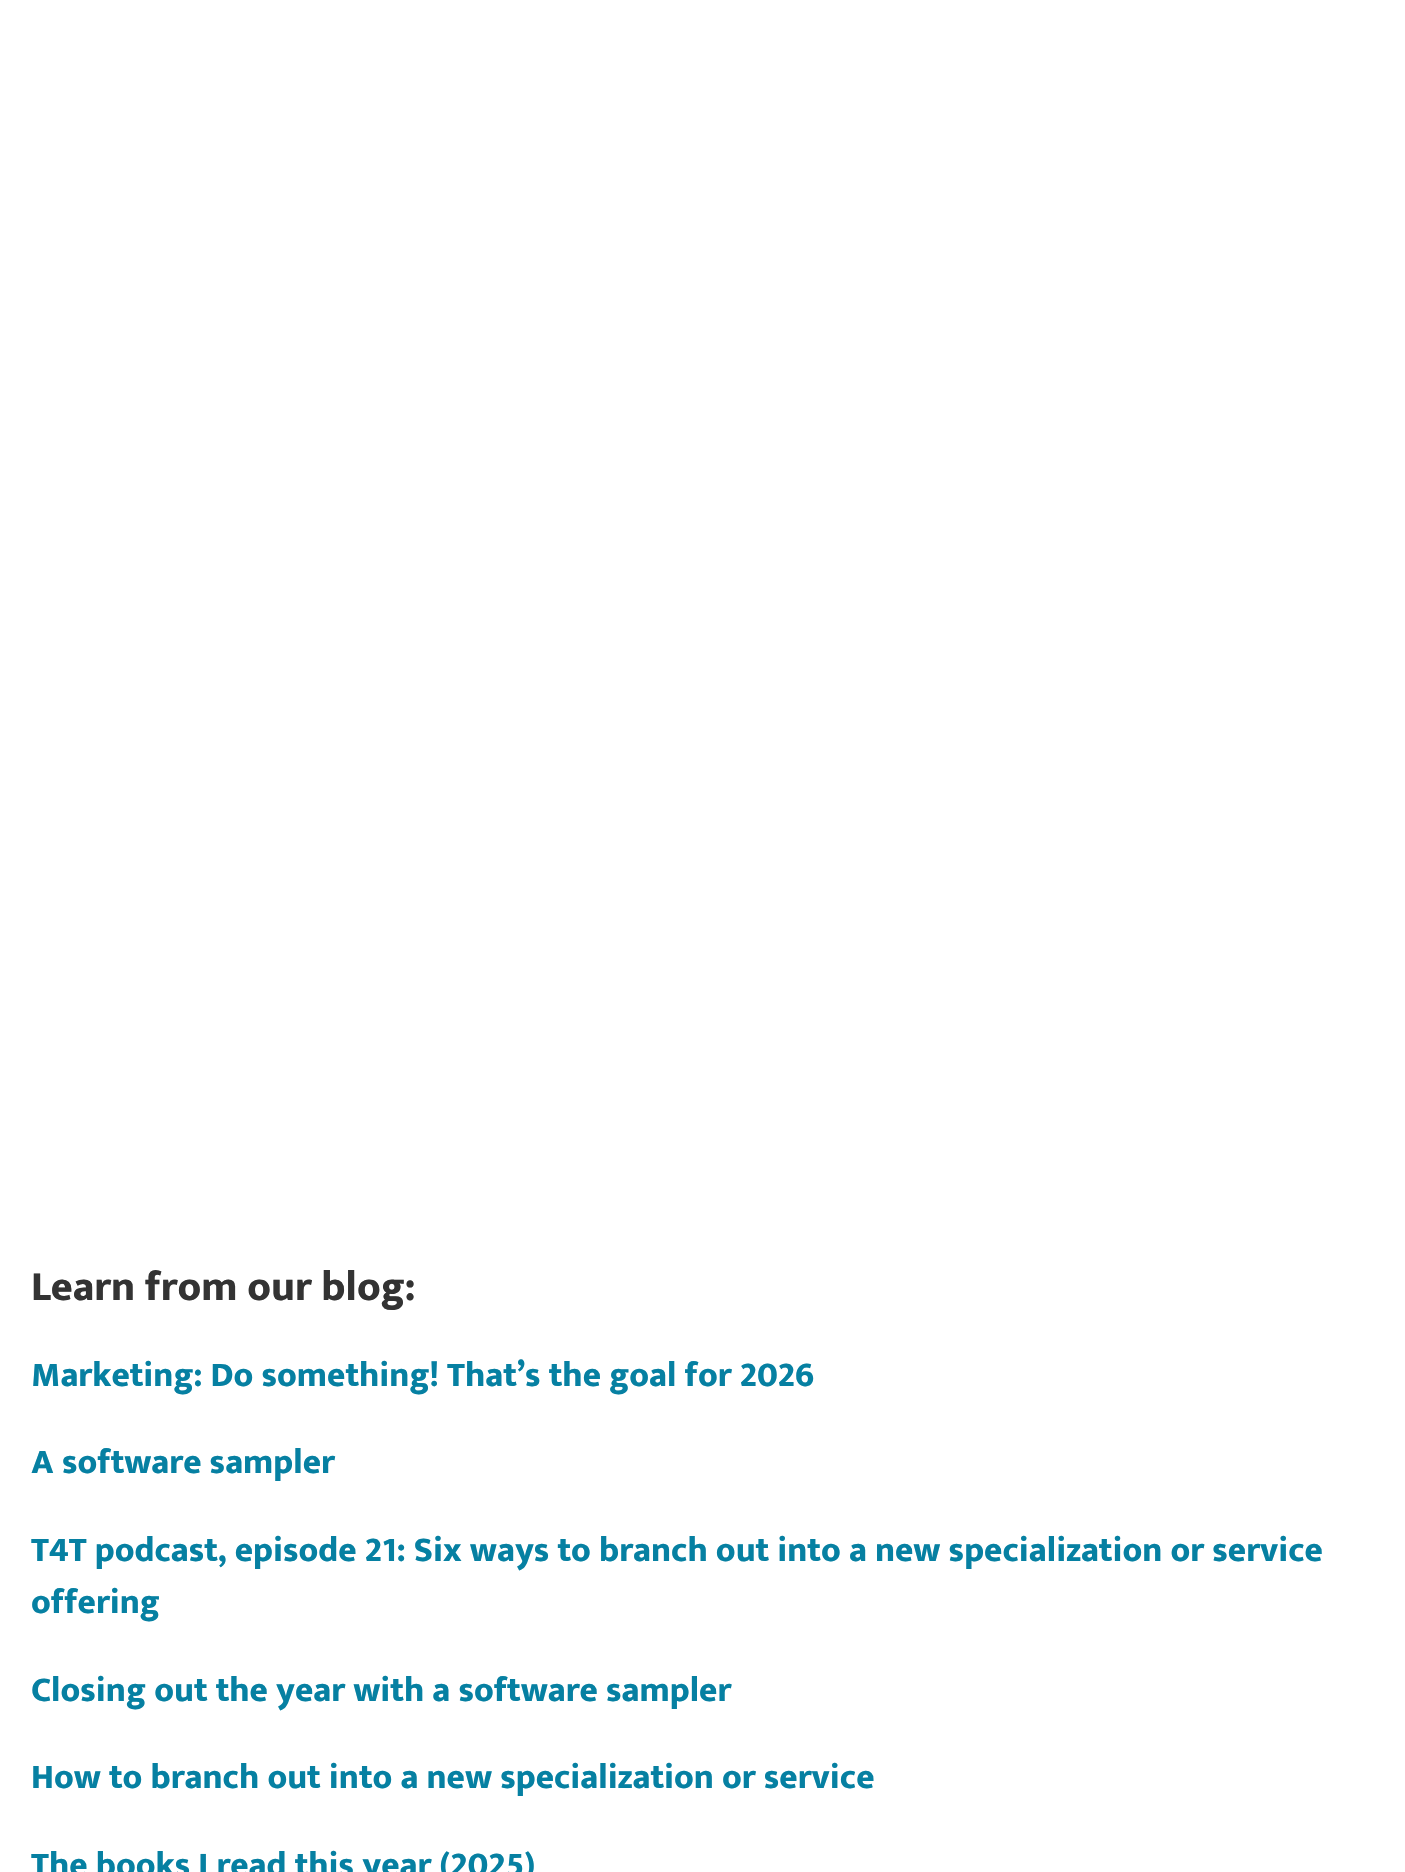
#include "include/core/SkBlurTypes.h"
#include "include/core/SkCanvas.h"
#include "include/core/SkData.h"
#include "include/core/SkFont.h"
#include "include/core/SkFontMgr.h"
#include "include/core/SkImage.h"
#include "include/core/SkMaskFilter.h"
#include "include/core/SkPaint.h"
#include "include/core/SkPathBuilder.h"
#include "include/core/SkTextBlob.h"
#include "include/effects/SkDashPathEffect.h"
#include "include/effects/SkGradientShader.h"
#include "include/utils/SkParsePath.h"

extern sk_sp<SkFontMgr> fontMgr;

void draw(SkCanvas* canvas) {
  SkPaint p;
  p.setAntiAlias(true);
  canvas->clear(SK_ColorWHITE);
  SkFont font1(fontMgr->matchFamilyStyle("Mukta", SkFontStyle(800, SkFontStyle::kNormal_Width, SkFontStyle::kUpright_Slant)), 42);
  font1.setSubpixel(true);
  p.setColor(SkColorSetRGB(51, 51, 51));
  canvas->drawString("Learn from our blog:", 31, 1300, font1, p);
  SkFont font2(fontMgr->matchFamilyStyle("Mukta", SkFontStyle(800, SkFontStyle::kNormal_Width, SkFontStyle::kUpright_Slant)), 35);
  font2.setSubpixel(true);
  p.setColor(SkColorSetRGB(6, 128, 162));
  canvas->drawString("Marketing: Do something! That’s the goal for 2026", 31, 1386, font2, p);
  canvas->drawString("A software sampler", 31, 1473, font2, p);
  canvas->drawString("T4T podcast, episode 21: Six ways to branch out into a new specialization or service", 31, 1561, font2, p);
  canvas->drawString("offering", 31, 1613, font2, p);
  canvas->drawString("Closing out the year with a software sampler", 31, 1701, font2, p);
  canvas->drawString("How to branch out into a new specialization or service", 31, 1788, font2, p);
  canvas->drawString("The books I read this year (2025)", 31, 1876, font2, p);
}
